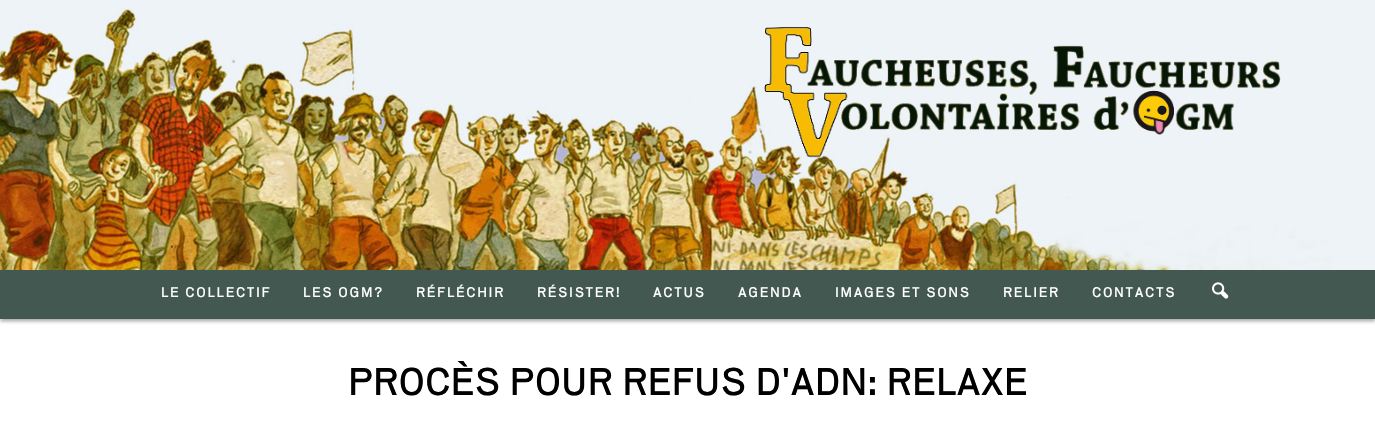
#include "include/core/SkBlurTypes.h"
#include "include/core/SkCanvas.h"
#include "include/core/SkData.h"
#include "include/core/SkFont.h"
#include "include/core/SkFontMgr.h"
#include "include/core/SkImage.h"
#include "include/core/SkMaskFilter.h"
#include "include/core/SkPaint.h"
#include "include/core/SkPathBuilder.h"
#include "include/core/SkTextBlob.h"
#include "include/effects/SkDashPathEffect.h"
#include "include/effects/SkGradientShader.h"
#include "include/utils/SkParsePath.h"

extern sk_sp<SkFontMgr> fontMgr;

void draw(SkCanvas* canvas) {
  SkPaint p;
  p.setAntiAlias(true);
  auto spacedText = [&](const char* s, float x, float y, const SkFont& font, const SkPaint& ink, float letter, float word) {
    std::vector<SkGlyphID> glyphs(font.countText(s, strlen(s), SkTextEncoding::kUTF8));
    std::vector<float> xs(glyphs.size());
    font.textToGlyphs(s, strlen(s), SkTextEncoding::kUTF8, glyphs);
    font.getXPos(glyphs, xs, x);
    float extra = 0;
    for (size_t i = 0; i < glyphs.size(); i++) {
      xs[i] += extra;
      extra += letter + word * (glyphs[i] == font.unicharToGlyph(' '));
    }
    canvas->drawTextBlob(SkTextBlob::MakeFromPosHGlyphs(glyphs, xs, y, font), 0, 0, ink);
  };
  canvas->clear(SK_ColorWHITE);
  p.setColor(SkColorSetARGB(59, 0, 0, 0));
  p.setMaskFilter(SkMaskFilter::MakeBlur(kNormal_SkBlurStyle, 1.5f));
  canvas->drawRect(SkRect::MakeLTRB(0, 3, 1375, 322), p);
  p.setMaskFilter(nullptr);
  p.setColor(SkColorSetARGB(48, 0, 0, 0));
  p.setMaskFilter(SkMaskFilter::MakeBlur(kNormal_SkBlurStyle, 1.5f));
  canvas->drawRect(SkRect::MakeLTRB(3, 0, 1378, 319), p);
  p.setMaskFilter(nullptr);
  canvas->drawImageRect(SkImages::DeferredFromEncodedData(SkData::MakeFromFileName("images/1.png")), SkRect::MakeLTRB(0, 0, 1375, 270), SkSamplingOptions());
  canvas->drawImageRect(SkImages::DeferredFromEncodedData(SkData::MakeFromFileName("images/2.png")), SkRect::MakeLTRB(764, 27, 1281, 158), SkSamplingOptions());
  p.setColor(SkColorSetRGB(67, 88, 80));
  canvas->drawRect(SkRect::MakeLTRB(0, 270, 1375, 319), p);
  canvas->drawImageRect(SkImages::DeferredFromEncodedData(SkData::MakeFromFileName("images/3.png")), SkRect::MakeLTRB(1212, 282, 1229, 299), SkSamplingOptions());
  SkFont font1(fontMgr->matchFamilyStyle("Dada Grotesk", SkFontStyle::Bold()), 13);
  font1.setSubpixel(true);
  p.setColor(SK_ColorWHITE);
  spacedText("LE COLLECTIF", 161, 297, font1, p, 2, 0);
  spacedText("LES OGM?", 303, 297, font1, p, 2, 0);
  spacedText("RÉFLÉCHIR", 416, 297, font1, p, 2, 0);
  spacedText("RÉSISTER!", 537, 297, font1, p, 2, 0);
  spacedText("ACTUS", 653, 297, font1, p, 2, 0);
  spacedText("AGENDA", 738, 297, font1, p, 2, 0);
  spacedText("IMAGES ET SONS", 835, 297, font1, p, 2, 0);
  spacedText("RELIER", 1003, 297, font1, p, 2, 0);
  spacedText("CONTACTS", 1092, 297, font1, p, 2, 0);
  SkFont font2(fontMgr->matchFamilyStyle("Dada Grotesk", SkFontStyle::Bold()), 36);
  font2.setSubpixel(true);
  p.setColor(SK_ColorBLACK);
  spacedText("PROCÈS POUR REFUS D'ADN: RELAXE", 348, 395, font2, p, 1, 0);
}
